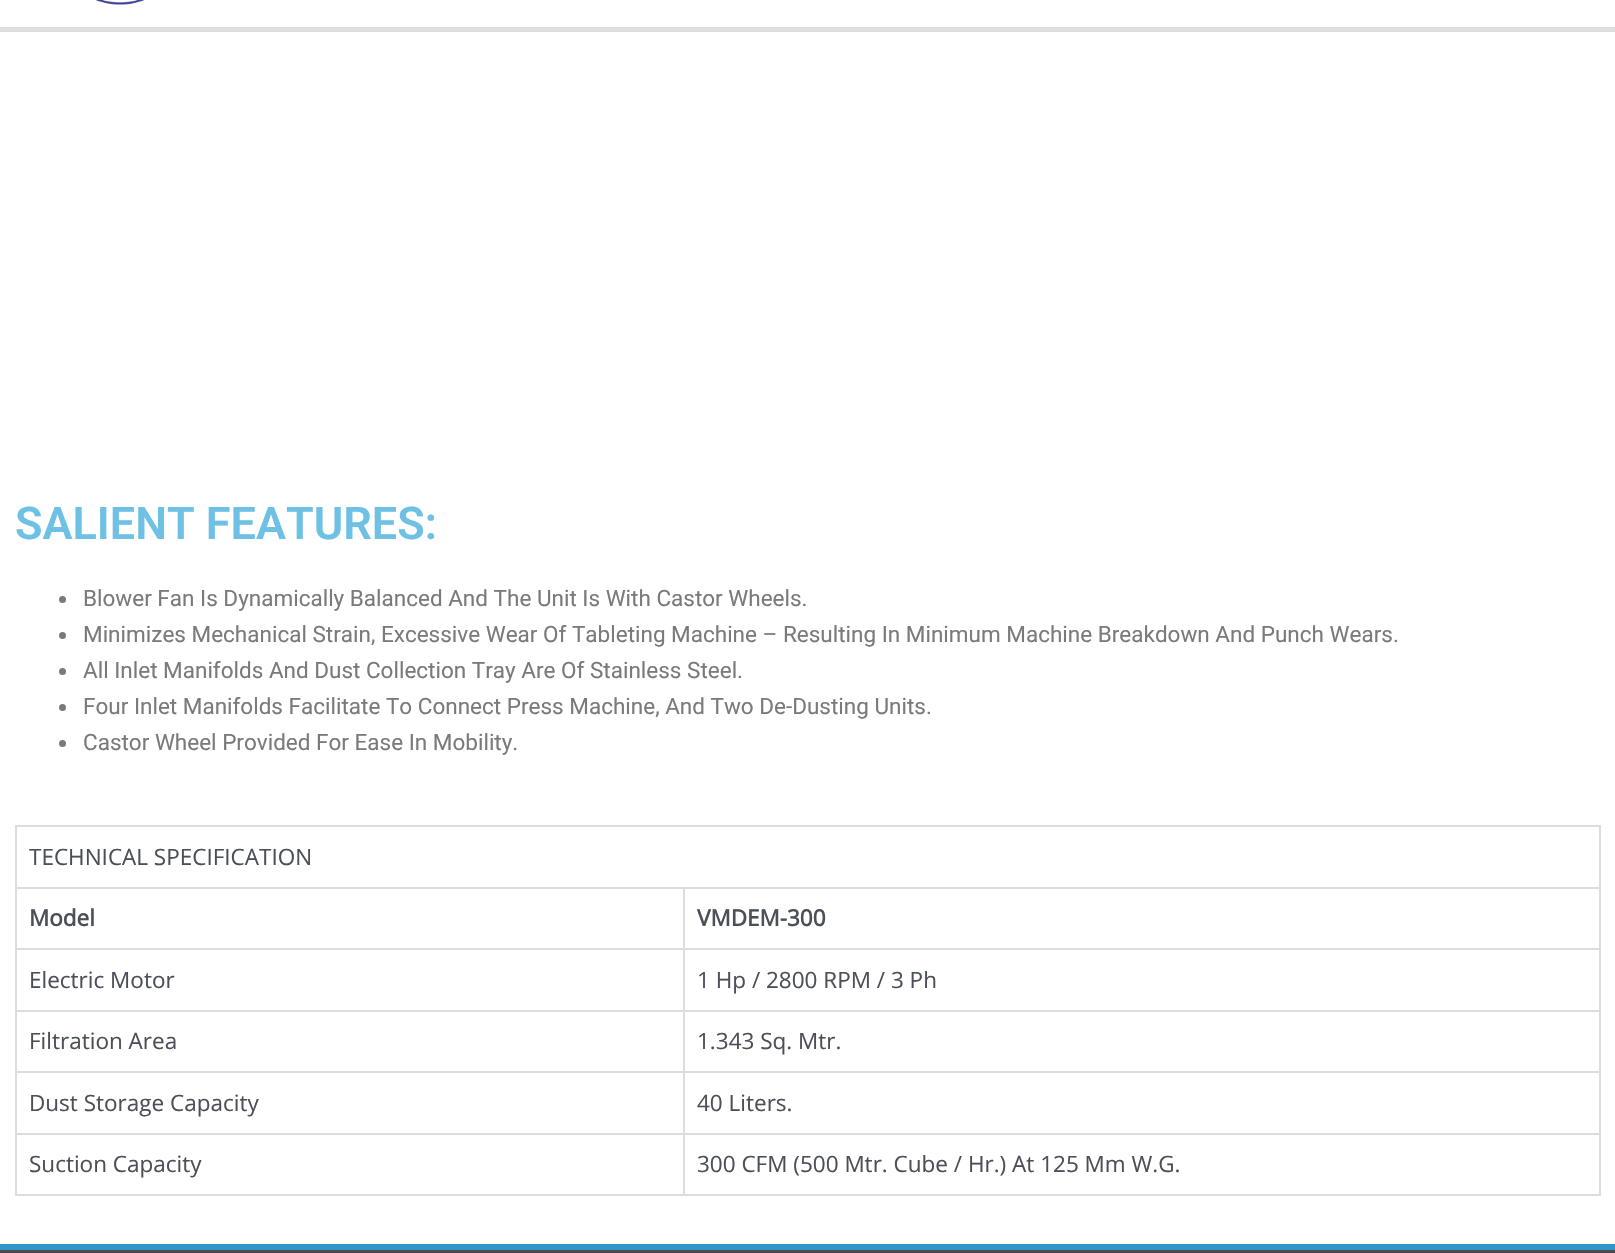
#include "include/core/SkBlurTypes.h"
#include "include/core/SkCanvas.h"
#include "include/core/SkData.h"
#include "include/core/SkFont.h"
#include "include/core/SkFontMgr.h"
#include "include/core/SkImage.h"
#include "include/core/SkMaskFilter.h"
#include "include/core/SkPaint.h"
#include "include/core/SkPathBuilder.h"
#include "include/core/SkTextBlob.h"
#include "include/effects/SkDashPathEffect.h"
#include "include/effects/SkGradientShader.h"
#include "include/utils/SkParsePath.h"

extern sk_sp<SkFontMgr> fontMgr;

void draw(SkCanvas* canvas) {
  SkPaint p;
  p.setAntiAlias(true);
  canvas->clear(SK_ColorWHITE);
  p.setColor(SkColorSetRGB(221, 221, 221));
  canvas->drawRect(SkRect::MakeLTRB(0, 27, 1615, 32), p);
  canvas->drawImageRect(SkImages::DeferredFromEncodedData(SkData::MakeFromFileName("images/1.png")), SkRect::MakeLTRB(96, 0, 144, 5), SkSamplingOptions());
  p.setColor(SkColorSetRGB(122, 122, 122));
  canvas->drawCircle(62.5f, 599.5f, 3.5f, p);
  canvas->drawCircle(62.5f, 635.5f, 3.5f, p);
  canvas->drawCircle(62.5f, 671.5f, 3.5f, p);
  canvas->drawCircle(62.5f, 707.5f, 3.5f, p);
  canvas->drawCircle(62.5f, 743.5f, 3.5f, p);
  p.setColor(SkColorSetRGB(221, 221, 221));
  canvas->drawRect(SkRect::MakeLTRB(15, 825, 1601, 827), p);
  canvas->drawRect(SkRect::MakeLTRB(15, 825, 17, 1196), p);
  canvas->drawRect(SkRect::MakeLTRB(1599, 827, 1601, 888), p);
  canvas->drawRect(SkRect::MakeLTRB(17, 887, 1601, 889), p);
  canvas->drawRect(SkRect::MakeLTRB(683, 888, 685, 1011), p);
  canvas->drawRect(SkRect::MakeLTRB(17, 948, 684, 950), p);
  canvas->drawRect(SkRect::MakeLTRB(1599, 888, 1601, 1011), p);
  canvas->drawRect(SkRect::MakeLTRB(684, 948, 1601, 950), p);
  canvas->drawRect(SkRect::MakeLTRB(17, 1010, 1601, 1012), p);
  canvas->drawRect(SkRect::MakeLTRB(683, 1011, 685, 1134), p);
  canvas->drawRect(SkRect::MakeLTRB(17, 1071, 684, 1073), p);
  canvas->drawRect(SkRect::MakeLTRB(1599, 1011, 1601, 1134), p);
  canvas->drawRect(SkRect::MakeLTRB(684, 1071, 1601, 1073), p);
  canvas->drawRect(SkRect::MakeLTRB(17, 1133, 1601, 1135), p);
  canvas->drawRect(SkRect::MakeLTRB(683, 1134, 685, 1196), p);
  canvas->drawRect(SkRect::MakeLTRB(17, 1194, 684, 1196), p);
  canvas->drawRect(SkRect::MakeLTRB(1599, 1134, 1601, 1196), p);
  canvas->drawRect(SkRect::MakeLTRB(684, 1194, 1601, 1196), p);
  p.setColor(SkColorSetRGB(49, 148, 200));
  canvas->drawRect(SkRect::MakeLTRB(0, 1244, 1615, 1250), p);
  p.setColor(SkColorSetRGB(76, 76, 76));
  canvas->drawRect(SkRect::MakeLTRB(0, 1250, 1615, 1253), p);
  SkFont font1(fontMgr->matchFamilyStyle("Roboto", SkFontStyle(600, SkFontStyle::kNormal_Width, SkFontStyle::kUpright_Slant)), 45);
  font1.setSubpixel(true);
  p.setColor(SkColorSetRGB(110, 193, 228));
  canvas->drawString("SALIENT FEATURES:", 15, 539, font1, p);
  SkFont font2(fontMgr->matchFamilyStyle("Roboto", SkFontStyle::Normal()), 22.5f);
  font2.setSubpixel(true);
  p.setColor(SkColorSetRGB(122, 122, 122));
  canvas->drawString("Blower Fan Is Dynamically Balanced And The Unit Is With Castor Wheels.", 83, 606, font2, p);
  canvas->drawString("Minimizes Mechanical Strain, Excessive Wear Of Tableting Machine – Resulting In Minimum Machine Breakdown And Punch Wears.", 83, 642, font2, p);
  canvas->drawString("All Inlet Manifolds And Dust Collection Tray Are Of Stainless Steel.", 83, 678, font2, p);
  canvas->drawString("Four Inlet Manifolds Facilitate To Connect Press Machine, And Two De-Dusting Units.", 83, 714, font2, p);
  canvas->drawString("Castor Wheel Provided For Ease In Mobility.", 83, 750, font2, p);
  SkFont font3(fontMgr->matchFamilyStyle("Open Sans", SkFontStyle::Normal()), 22.5f);
  font3.setSubpixel(true);
  p.setColor(SkColorSetRGB(75, 79, 88));
  canvas->drawString("TECHNICAL SPECIFICATION", 29, 865, font3, p);
  SkFont font4(fontMgr->matchFamilyStyle("Open Sans", SkFontStyle::Bold()), 22.5f);
  font4.setSubpixel(true);
  canvas->drawString("Model", 29, 926, font4, p);
  canvas->drawString("VMDEM-300", 697, 926, font4, p);
  canvas->drawString("Electric Motor", 29, 988, font3, p);
  canvas->drawString("1 Hp / 2800 RPM / 3 Ph", 697, 988, font3, p);
  canvas->drawString("Filtration Area", 29, 1049, font3, p);
  canvas->drawString("1.343 Sq. Mtr.", 697, 1049, font3, p);
  canvas->drawString("Dust Storage Capacity", 29, 1111, font3, p);
  canvas->drawString("40 Liters.", 697, 1111, font3, p);
  canvas->drawString("Suction Capacity", 29, 1172, font3, p);
  canvas->drawString("300 CFM (500 Mtr. Cube / Hr.) At 125 Mm W.G.", 697, 1172, font3, p);
}
